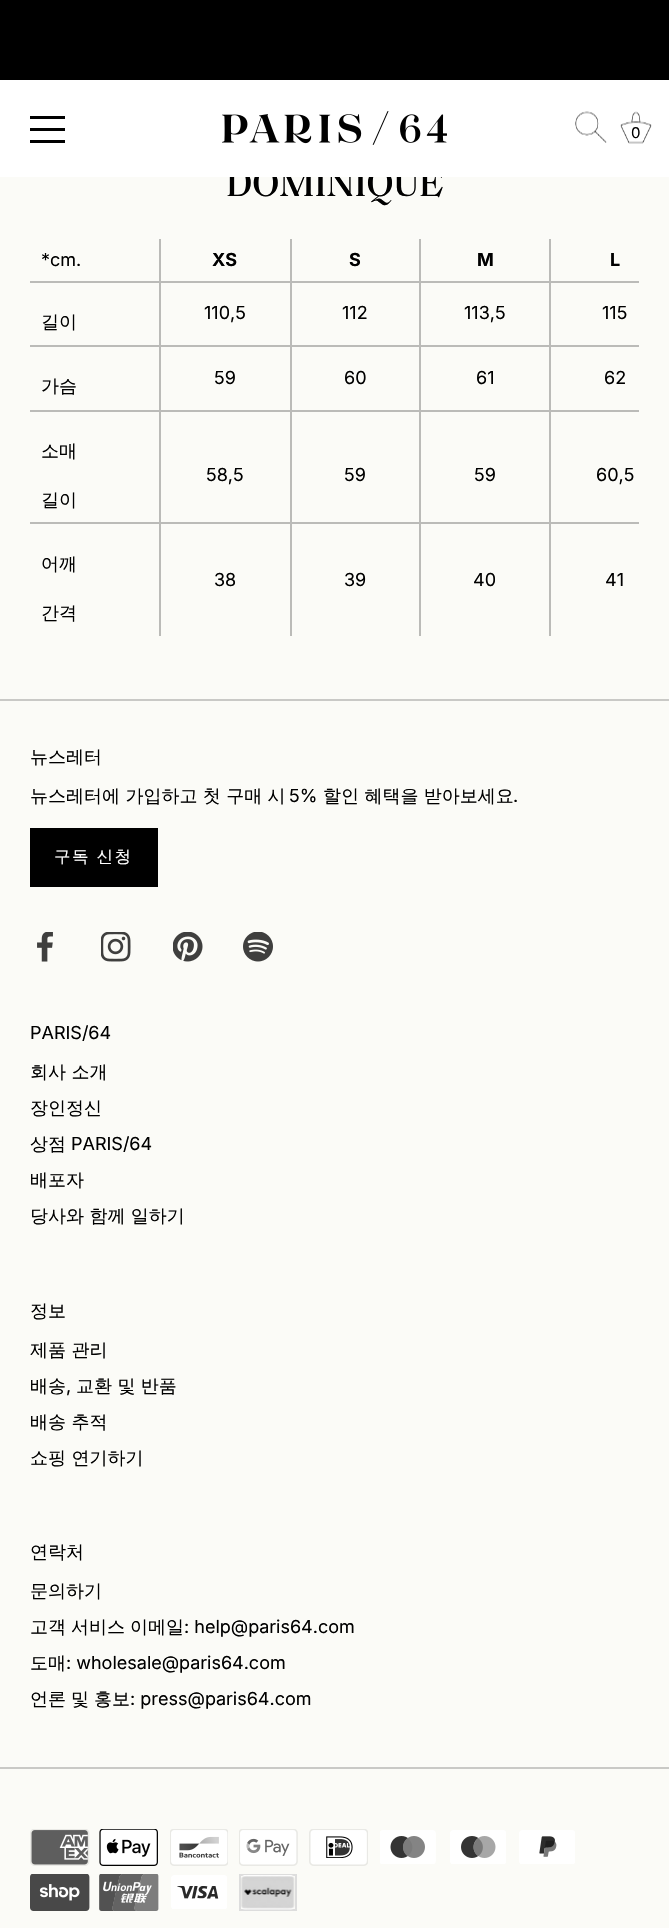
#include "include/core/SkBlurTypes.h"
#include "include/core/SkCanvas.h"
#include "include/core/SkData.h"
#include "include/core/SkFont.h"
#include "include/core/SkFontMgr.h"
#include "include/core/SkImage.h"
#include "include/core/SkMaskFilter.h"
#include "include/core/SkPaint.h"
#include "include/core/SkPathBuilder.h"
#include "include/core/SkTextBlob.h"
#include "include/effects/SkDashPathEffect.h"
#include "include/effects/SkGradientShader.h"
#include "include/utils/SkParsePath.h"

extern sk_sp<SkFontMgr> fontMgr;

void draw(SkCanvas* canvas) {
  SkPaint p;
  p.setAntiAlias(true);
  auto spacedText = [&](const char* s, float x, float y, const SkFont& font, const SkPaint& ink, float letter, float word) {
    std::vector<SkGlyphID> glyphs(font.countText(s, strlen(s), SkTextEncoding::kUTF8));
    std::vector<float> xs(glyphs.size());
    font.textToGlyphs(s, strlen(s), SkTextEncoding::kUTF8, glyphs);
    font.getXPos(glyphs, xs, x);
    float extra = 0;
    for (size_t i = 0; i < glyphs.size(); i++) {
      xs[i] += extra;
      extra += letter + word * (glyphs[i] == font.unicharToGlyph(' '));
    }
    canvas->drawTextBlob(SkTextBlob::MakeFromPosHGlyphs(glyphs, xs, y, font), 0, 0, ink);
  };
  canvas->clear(SkColorSetRGB(251, 251, 247));
  p.setColor(SK_ColorBLACK);
  canvas->drawRect(SkRect::MakeLTRB(0, 0, 669, 80), p);
  p.setColor(SkColorSetRGB(187, 187, 184));
  canvas->drawRect(SkRect::MakeLTRB(30, 281, 639, 283), p);
  canvas->drawRect(SkRect::MakeLTRB(30, 345, 639, 347), p);
  canvas->drawRect(SkRect::MakeLTRB(30, 410, 639, 412), p);
  canvas->drawRect(SkRect::MakeLTRB(30, 522, 639, 524), p);
  canvas->drawRect(SkRect::MakeLTRB(159, 239, 161, 636), p);
  canvas->drawRect(SkRect::MakeLTRB(290, 239, 292, 636), p);
  canvas->drawRect(SkRect::MakeLTRB(419, 239, 421, 636), p);
  canvas->drawRect(SkRect::MakeLTRB(549, 239, 551, 636), p);
  p.setColor(SkColorSetRGB(201, 201, 198));
  canvas->drawRect(SkRect::MakeLTRB(0, 699, 669, 701), p);
  p.setColor(SK_ColorBLACK);
  canvas->drawRect(SkRect::MakeLTRB(30, 828, 158, 887), p);
  canvas->drawImageRect(SkImages::DeferredFromEncodedData(SkData::MakeFromFileName("images/4.png")), SkRect::MakeLTRB(37, 932, 53, 962), SkSamplingOptions());
  canvas->drawImageRect(SkImages::DeferredFromEncodedData(SkData::MakeFromFileName("images/5.png")), SkRect::MakeLTRB(101, 932, 131, 962), SkSamplingOptions());
  canvas->drawImageRect(SkImages::DeferredFromEncodedData(SkData::MakeFromFileName("images/6.png")), SkRect::MakeLTRB(173, 932, 203, 962), SkSamplingOptions());
  canvas->drawImageRect(SkImages::DeferredFromEncodedData(SkData::MakeFromFileName("images/7.png")), SkRect::MakeLTRB(243, 932, 273, 962), SkSamplingOptions());
  p.setColor(SkColorSetRGB(201, 201, 198));
  canvas->drawRect(SkRect::MakeLTRB(0, 1767, 669, 1769), p);
  canvas->drawImageRect(SkImages::DeferredFromEncodedData(SkData::MakeFromFileName("images/8.png")), SkRect::MakeLTRB(30, 1829, 90, 1866), SkSamplingOptions());
  canvas->drawImageRect(SkImages::DeferredFromEncodedData(SkData::MakeFromFileName("images/9.png")), SkRect::MakeLTRB(99, 1829, 158, 1866), SkSamplingOptions());
  canvas->drawImageRect(SkImages::DeferredFromEncodedData(SkData::MakeFromFileName("images/10.png")), SkRect::MakeLTRB(170, 1829, 228, 1866), SkSamplingOptions());
  canvas->drawImageRect(SkImages::DeferredFromEncodedData(SkData::MakeFromFileName("images/11.png")), SkRect::MakeLTRB(239, 1829, 298, 1866), SkSamplingOptions());
  canvas->drawImageRect(SkImages::DeferredFromEncodedData(SkData::MakeFromFileName("images/12.png")), SkRect::MakeLTRB(309, 1829, 368, 1866), SkSamplingOptions());
  canvas->drawImageRect(SkImages::DeferredFromEncodedData(SkData::MakeFromFileName("images/13.png")), SkRect::MakeLTRB(380, 1830, 436, 1864), SkSamplingOptions());
  canvas->drawImageRect(SkImages::DeferredFromEncodedData(SkData::MakeFromFileName("images/14.png")), SkRect::MakeLTRB(450, 1830, 506, 1864), SkSamplingOptions());
  canvas->drawImageRect(SkImages::DeferredFromEncodedData(SkData::MakeFromFileName("images/15.png")), SkRect::MakeLTRB(519, 1830, 575, 1864), SkSamplingOptions());
  canvas->drawImageRect(SkImages::DeferredFromEncodedData(SkData::MakeFromFileName("images/16.png")), SkRect::MakeLTRB(30, 1874, 90, 1911), SkSamplingOptions());
  canvas->drawImageRect(SkImages::DeferredFromEncodedData(SkData::MakeFromFileName("images/17.png")), SkRect::MakeLTRB(99, 1874, 159, 1911), SkSamplingOptions());
  canvas->drawImageRect(SkImages::DeferredFromEncodedData(SkData::MakeFromFileName("images/18.png")), SkRect::MakeLTRB(171, 1875, 227, 1909), SkSamplingOptions());
  p.setStyle(SkPaint::kStroke_Style);
  p.setStrokeWidth(2);
  p.setColor(SkColorSetRGB(221, 221, 221));
  canvas->drawRect(SkRect::MakeLTRB(240, 1875, 296, 1910), p);
  canvas->drawImageRect(SkImages::DeferredFromEncodedData(SkData::MakeFromFileName("images/19.png")), SkRect::MakeLTRB(241, 1875, 295, 1910), SkSamplingOptions());
  SkFont font1(fontMgr->matchFamilyStyle("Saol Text", SkFontStyle(500, SkFontStyle::kNormal_Width, SkFontStyle::kUpright_Slant)), 39);
  font1.setSubpixel(true);
  p.setStyle(SkPaint::kFill_Style);
  p.setColor(SK_ColorBLACK);
  canvas->drawString("DOMINIQUE", 226, 196, font1, p);
  p.setColor(SK_ColorWHITE);
  canvas->drawRect(SkRect::MakeLTRB(0, 80, 669, 177), p);
  canvas->drawImageRect(SkImages::DeferredFromEncodedData(SkData::MakeFromFileName("images/3.png")), SkRect::MakeLTRB(620, 111, 652, 144), SkSamplingOptions());
  SkFont font2(fontMgr->matchFamilyStyle("Inter", SkFontStyle::Normal()), 15);
  font2.setSubpixel(true);
  p.setColor(SK_ColorBLACK);
  canvas->drawString("0", 631, 138, font2, p);
  canvas->drawImageRect(SkImages::DeferredFromEncodedData(SkData::MakeFromFileName("images/2.png")), SkRect::MakeLTRB(575, 111, 607, 143), SkSamplingOptions());
  canvas->drawImageRect(SkImages::DeferredFromEncodedData(SkData::MakeFromFileName("images/1.png")), SkRect::MakeLTRB(222, 111, 447, 145), SkSamplingOptions());
  canvas->drawRect(SkRect::MakeLTRB(30, 140, 65, 143), p);
  canvas->drawRect(SkRect::MakeLTRB(30, 128, 65, 131), p);
  canvas->drawRect(SkRect::MakeLTRB(30, 116, 65, 119), p);
  SkFont font3(fontMgr->matchFamilyStyle("Inter", SkFontStyle::Normal()), 18);
  font3.setSubpixel(true);
  canvas->drawString("*cm.", 41, 266, font3, p);
  SkFont font4(fontMgr->matchFamilyStyle("Inter", SkFontStyle::Bold()), 18);
  font4.setSubpixel(true);
  canvas->drawString("XS", 212, 266, font4, p);
  canvas->drawString("S", 349, 266, font4, p);
  canvas->drawString("M", 477, 266, font4, p);
  canvas->drawString("L", 610, 266, font4, p);
  canvas->drawString("110,5", 204, 319, font3, p);
  canvas->drawString("112", 342, 319, font3, p);
  canvas->drawString("113,5", 464, 319, font3, p);
  canvas->drawString("115", 602, 319, font3, p);
  SkFont font5(fontMgr->matchFamilyStyle("WenQuanYi Zen Hei", SkFontStyle(500, SkFontStyle::kNormal_Width, SkFontStyle::kUpright_Slant)), 18);
  font5.setSubpixel(true);
  canvas->drawString("길이", 41, 328, font5, p);
  canvas->drawString("가슴", 41, 392, font5, p);
  canvas->drawString("59", 214, 384, font3, p);
  canvas->drawString("60", 344, 384, font3, p);
  canvas->drawString("61", 476, 384, font3, p);
  canvas->drawString("62", 604, 384, font3, p);
  canvas->drawString("소매", 41, 457, font5, p);
  canvas->drawString("길이", 41, 506, font5, p);
  canvas->drawString("58,5", 206, 481, font3, p);
  canvas->drawString("59", 344, 481, font3, p);
  canvas->drawString("59", 474, 481, font3, p);
  canvas->drawString("60,5", 596, 481, font3, p);
  canvas->drawString("어깨", 41, 570, font5, p);
  canvas->drawString("간격", 41, 619, font5, p);
  canvas->drawString("38", 214, 586, font3, p);
  canvas->drawString("39", 344, 586, font3, p);
  canvas->drawString("40", 473, 586, font3, p);
  canvas->drawString("41", 605, 586, font3, p);
  canvas->drawString("뉴스레터", 30, 763, font5, p);
  canvas->drawString("뉴스레터에 가입하고 첫 구매 시", 30, 802, font5, p);
  canvas->drawString("5%", 289, 802, font3, p);
  canvas->drawString("할인 혜택을 받아보세요", 323, 802, font5, p);
  canvas->drawString(".", 513, 802, font3, p);
  SkFont font6(fontMgr->matchFamilyStyle("WenQuanYi Zen Hei", SkFontStyle(500, SkFontStyle::kNormal_Width, SkFontStyle::kUpright_Slant)), 16.5f);
  font6.setSubpixel(true);
  p.setColor(SK_ColorWHITE);
  spacedText("구독 신청", 54, 862, font6, p, 1.5f, 0);
  p.setColor(SK_ColorBLACK);
  canvas->drawString("PARIS/64", 30, 1039, font3, p);
  canvas->drawString("회사 소개", 30, 1078, font5, p);
  canvas->drawString("장인정신", 30, 1114, font5, p);
  canvas->drawString("상점", 30, 1150, font5, p);
  canvas->drawString("PARIS/64", 71, 1150, font3, p);
  canvas->drawString("배포자", 30, 1186, font5, p);
  canvas->drawString("당사와 함께 일하기", 30, 1222, font5, p);
  canvas->drawString("정보", 30, 1317, font5, p);
  canvas->drawString("제품 관리", 30, 1356, font5, p);
  canvas->drawString("배송", 30, 1392, font5, p);
  canvas->drawString(",", 66, 1392, font3, p);
  canvas->drawString("교환 및 반품", 76, 1392, font5, p);
  canvas->drawString("배송 추적", 30, 1428, font5, p);
  canvas->drawString("쇼핑 연기하기", 30, 1464, font5, p);
  canvas->drawString("연락처", 30, 1558, font5, p);
  canvas->drawString("문의하기", 30, 1597, font5, p);
  canvas->drawString("고객", 30, 1633, font5, p);
  canvas->drawString("서비스", 71, 1633, font5, p);
  canvas->drawString("이메일", 130, 1633, font5, p);
  canvas->drawString(": help@paris64.com", 184, 1633, font3, p);
  canvas->drawString("도매", 30, 1669, font5, p);
  canvas->drawString(": wholesale@paris64.com", 66, 1669, font3, p);
  canvas->drawString("언론", 30, 1705, font5, p);
  canvas->drawString("및", 71, 1705, font5, p);
  canvas->drawString("홍보", 94, 1705, font5, p);
  canvas->drawString(": press@paris64.com", 130, 1705, font3, p);
}
